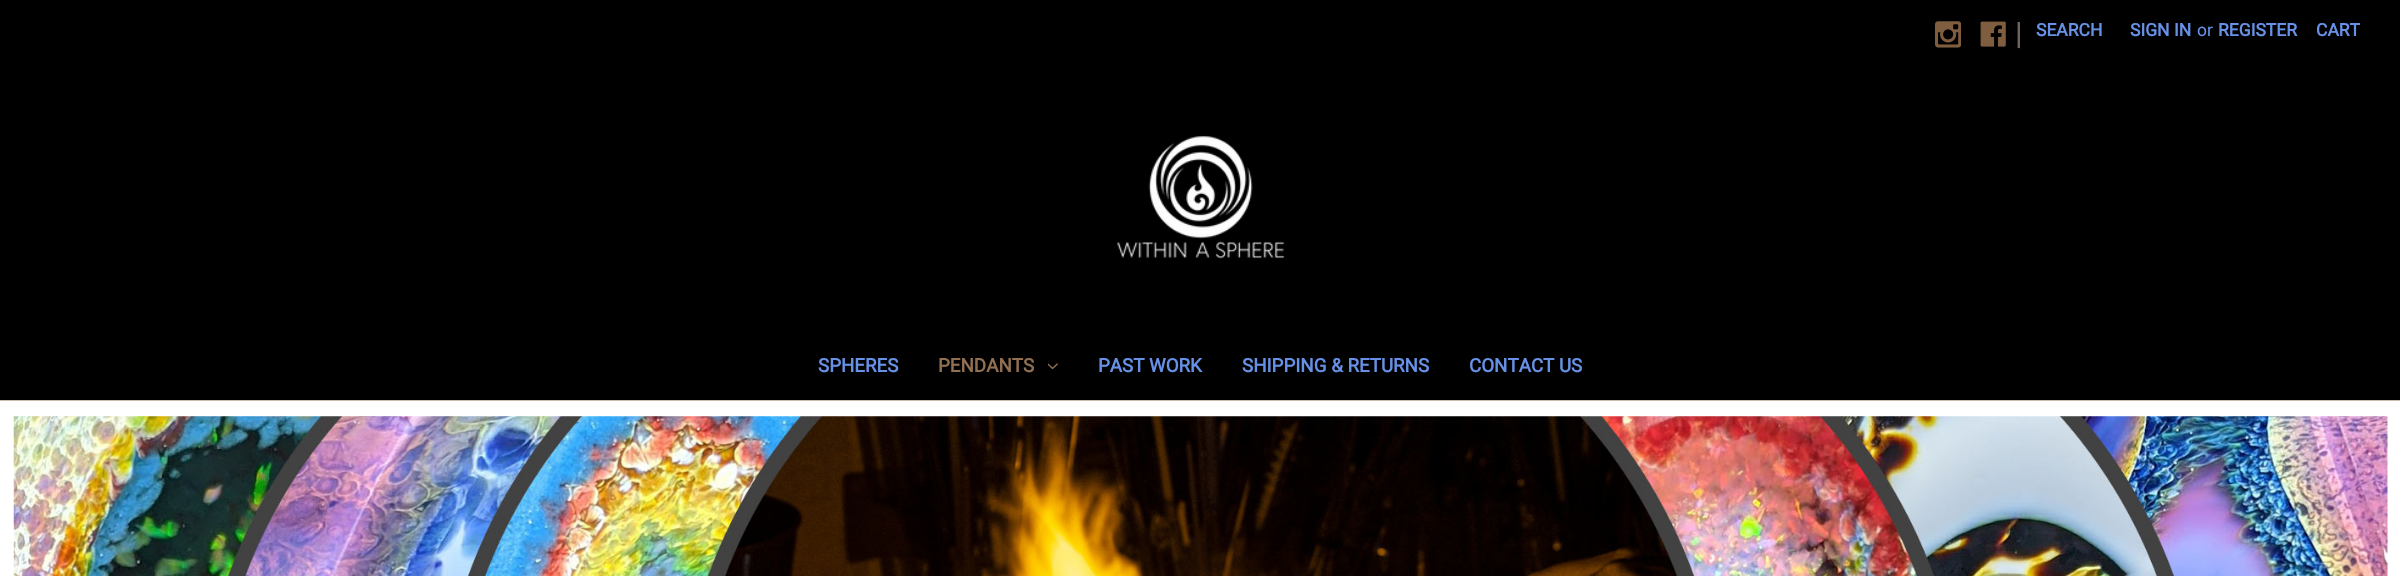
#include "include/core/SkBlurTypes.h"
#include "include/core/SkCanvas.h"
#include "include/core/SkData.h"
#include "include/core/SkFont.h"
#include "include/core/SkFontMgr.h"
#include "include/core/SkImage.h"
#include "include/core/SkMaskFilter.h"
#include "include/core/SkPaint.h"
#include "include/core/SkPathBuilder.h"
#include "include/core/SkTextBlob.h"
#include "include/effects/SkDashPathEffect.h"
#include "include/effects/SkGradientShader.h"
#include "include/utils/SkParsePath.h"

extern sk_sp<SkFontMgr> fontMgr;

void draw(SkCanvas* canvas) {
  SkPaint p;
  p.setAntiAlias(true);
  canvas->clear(SK_ColorWHITE);
  p.setColor(SK_ColorBLACK);
  canvas->drawRect(SkRect::MakeLTRB(0, 0, 2400, 400), p);
  p.setColor(SkColorSetRGB(204, 189, 174));
  canvas->drawRect(SkRect::MakeLTRB(0, 400, 2400, 401), p);
  canvas->drawImageRect(SkImages::DeferredFromEncodedData(SkData::MakeFromFileName("images/1.png")), SkRect::MakeLTRB(1935, 21, 1961, 48), SkSamplingOptions());
  canvas->drawImageRect(SkImages::DeferredFromEncodedData(SkData::MakeFromFileName("images/2.png")), SkRect::MakeLTRB(1980, 21, 2006, 47), SkSamplingOptions());
  canvas->drawImageRect(SkImages::DeferredFromEncodedData(SkData::MakeFromFileName("images/3.png")), SkRect::MakeLTRB(1117, 135, 1285, 259), SkSamplingOptions());
  canvas->drawImageRect(SkImages::DeferredFromEncodedData(SkData::MakeFromFileName("images/4.png")), SkRect::MakeLTRB(1048, 363, 1058, 370), SkSamplingOptions());
  canvas->drawImageRect(SkImages::DeferredFromEncodedData(SkData::MakeFromFileName("images/5.png")), SkRect::MakeLTRB(13, 416, 2388, 576), SkSamplingOptions());
  SkFont font1(fontMgr->matchFamilyStyle("Roboto", SkFontStyle::Normal()), 31);
  font1.setSubpixel(true);
  p.setColor(SkColorSetRGB(116, 104, 92));
  canvas->drawString("|", 2015, 44, font1, p);
  SkFont font2(fontMgr->matchFamilyStyle("Roboto", SkFontStyle::Bold()), 17.5f);
  font2.setSubpixel(true);
  p.setColor(SkColorSetRGB(103, 145, 230));
  canvas->drawString("SEARCH", 2036, 36, font2, p);
  canvas->drawString("SIGN IN", 2130, 36, font2, p);
  SkFont font3(fontMgr->matchFamilyStyle("Roboto", SkFontStyle::Normal()), 17.5f);
  font3.setSubpixel(true);
  canvas->drawString("or", 2197, 36, font3, p);
  canvas->drawString("REGISTER", 2218, 36, font2, p);
  canvas->drawString("CART", 2316, 36, font2, p);
  SkFont font4(fontMgr->matchFamilyStyle("Roboto", SkFontStyle::Bold()), 18.75f);
  font4.setSubpixel(true);
  canvas->drawString("SPHERES", 818, 372, font4, p);
  p.setColor(SkColorSetRGB(145, 112, 82));
  canvas->drawString("PENDANTS", 938, 372, font4, p);
  p.setColor(SkColorSetRGB(103, 145, 230));
  canvas->drawString("PAST WORK", 1098, 372, font4, p);
  canvas->drawString("SHIPPING & RETURNS", 1242, 372, font4, p);
  canvas->drawString("CONTACT US", 1469, 372, font4, p);
}
